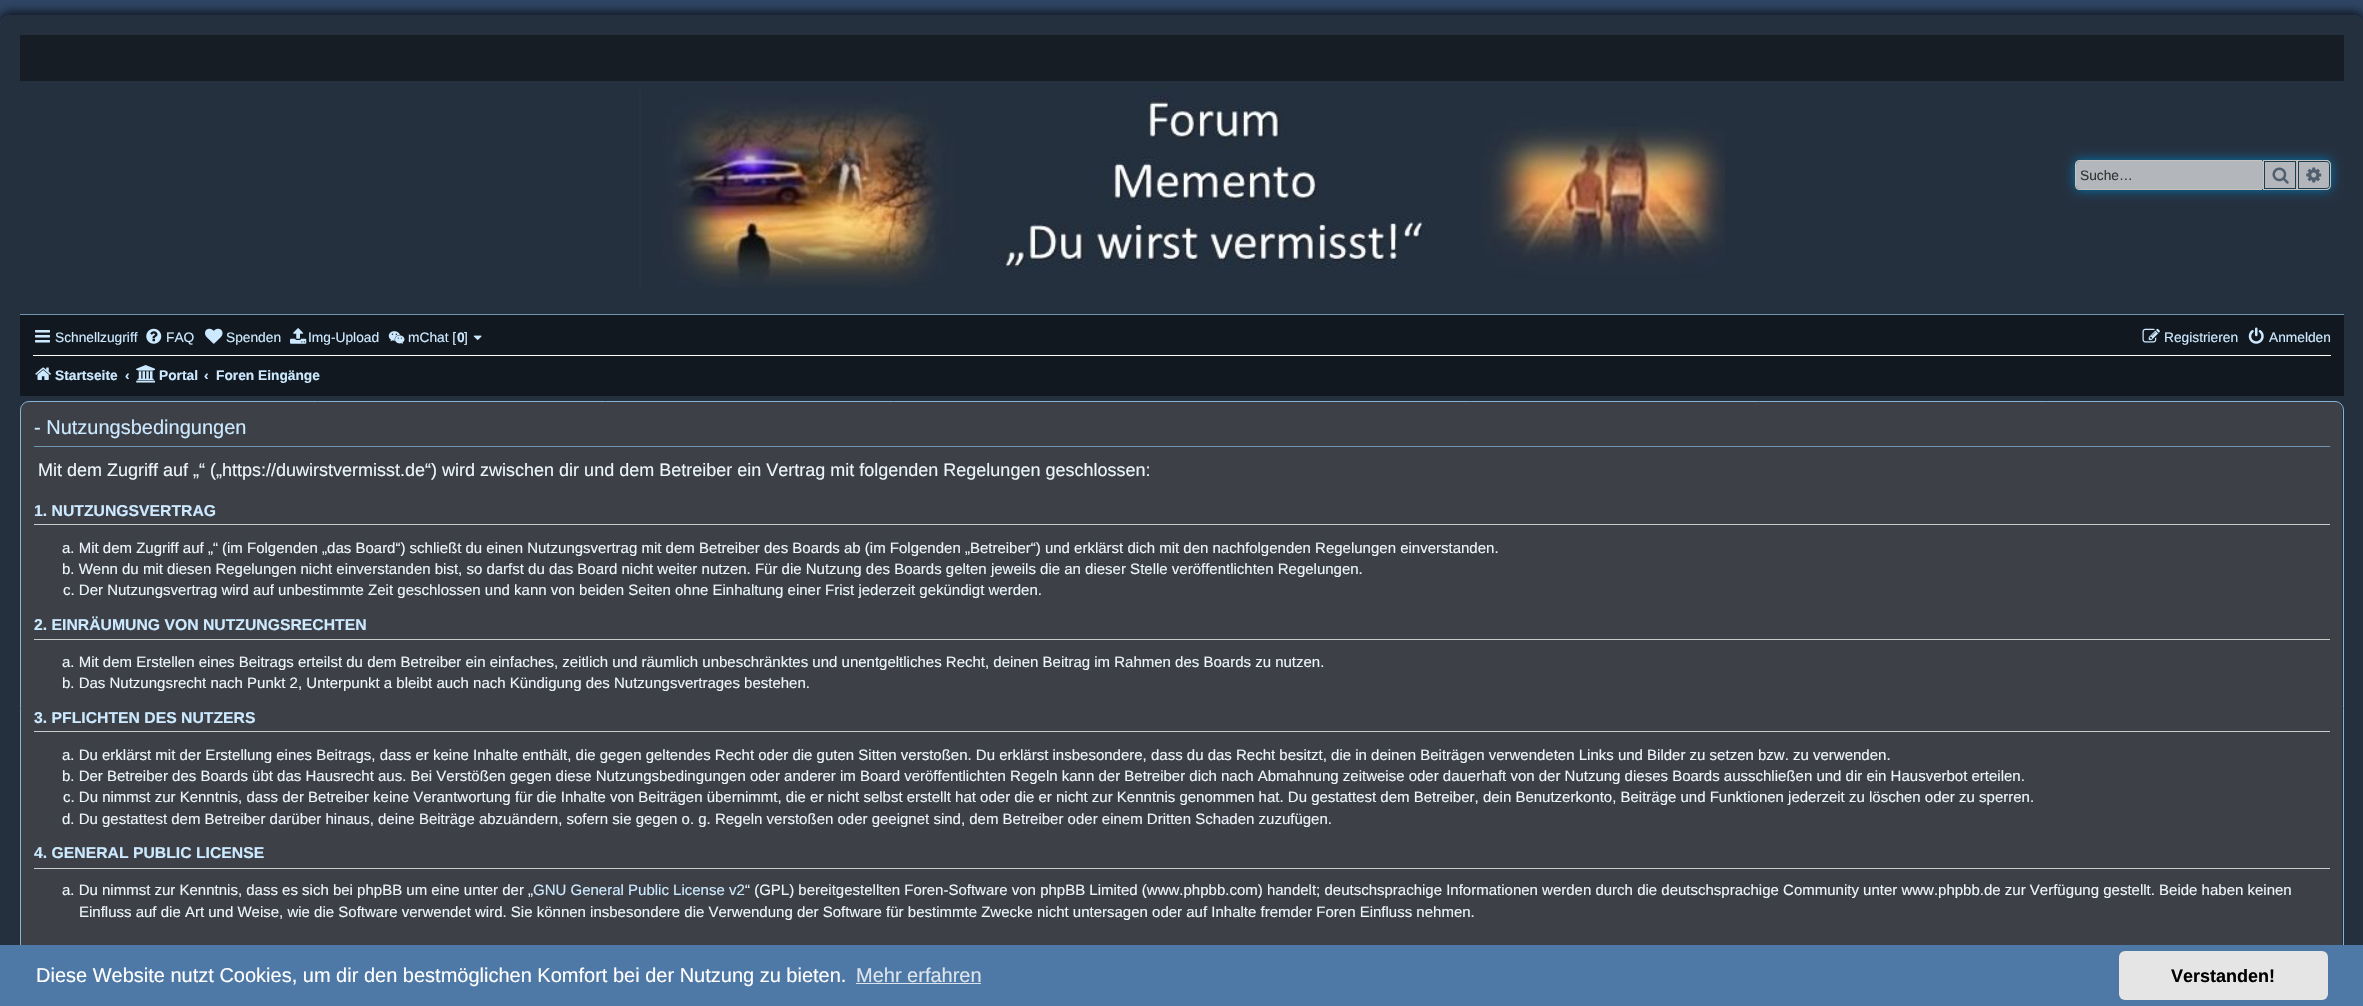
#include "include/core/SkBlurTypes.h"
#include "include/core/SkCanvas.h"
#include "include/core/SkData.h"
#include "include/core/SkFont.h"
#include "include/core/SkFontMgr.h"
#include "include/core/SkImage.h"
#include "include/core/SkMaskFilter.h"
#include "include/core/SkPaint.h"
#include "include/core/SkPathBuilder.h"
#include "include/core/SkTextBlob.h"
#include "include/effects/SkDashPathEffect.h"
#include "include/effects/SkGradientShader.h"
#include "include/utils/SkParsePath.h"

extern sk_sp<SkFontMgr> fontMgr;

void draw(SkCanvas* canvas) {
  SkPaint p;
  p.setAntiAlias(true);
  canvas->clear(SkColorSetRGB(46, 69, 99));
  canvas->save();
  canvas->clipPath(SkPathBuilder(SkPathFillType::kEvenOdd).moveTo(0, 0).lineTo(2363, 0).lineTo(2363, 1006).lineTo(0, 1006).close().moveTo(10, 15).lineTo(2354, 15).cubicTo(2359.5f, 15, 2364, 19.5f, 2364, 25).lineTo(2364, 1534).cubicTo(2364, 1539.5f, 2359.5f, 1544, 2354, 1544).lineTo(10, 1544).cubicTo(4.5f, 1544, 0, 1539.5f, 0, 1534).lineTo(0, 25).cubicTo(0, 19.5f, 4.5f, 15, 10, 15).close().detach(), true);
  p.setColor(SkColorSetARGB(158, 0, 0, 0));
  p.setMaskFilter(SkMaskFilter::MakeBlur(kNormal_SkBlurStyle, 4));
  canvas->drawRoundRect(SkRect::MakeLTRB(-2, 11, 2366, 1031), 13, 13, p);
  p.setMaskFilter(nullptr);
  canvas->restore();
  p.setColor(SkColorSetARGB(133, 28, 28, 28));
  canvas->drawRoundRect(SkRect::MakeLTRB(0, 15, 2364, 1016), 10, 10, p);
  p.setColor(SkColorSetRGB(22, 29, 37));
  canvas->drawRect(SkRect::MakeLTRB(20, 35, 2344, 81), p);
  canvas->drawImageRect(SkImages::DeferredFromEncodedData(SkData::MakeFromFileName("images/1.png")), SkRect::MakeLTRB(639, 87, 1725, 288), SkSamplingOptions());
  p.setColor(SkColorSetRGB(0, 117, 176));
  p.setMaskFilter(SkMaskFilter::MakeBlur(kNormal_SkBlurStyle, 6));
  canvas->drawRoundRect(SkRect::MakeLTRB(2075, 160, 2331, 190), 5, 5, p);
  p.setMaskFilter(nullptr);
  p.setColor(SkColorSetRGB(179, 182, 187));
  canvas->drawPath(SkPathBuilder().moveTo(2080, 161).lineTo(2263, 161).lineTo(2263, 189).lineTo(2080, 189).cubicTo(2078, 189, 2076, 187, 2076, 185).lineTo(2076, 165).cubicTo(2076, 163, 2078, 161, 2080, 161).close().detach(), p);
  p.setColor(SkColorSetRGB(199, 195, 191));
  canvas->drawPath(SkPathBuilder(SkPathFillType::kEvenOdd).moveTo(2080, 160).lineTo(2262, 160).lineTo(2262, 190).lineTo(2080, 190).cubicTo(2077, 190, 2075, 188, 2075, 185).lineTo(2075, 165).cubicTo(2075, 162, 2077, 160, 2080, 160).close().moveTo(2080, 161).lineTo(2262, 161).lineTo(2262, 189).lineTo(2080, 189).cubicTo(2078, 189, 2076, 187, 2076, 185).lineTo(2076, 165).cubicTo(2076, 163, 2078, 161, 2080, 161).close().detach(), p);
  p.setColor(SkColorSetRGB(179, 182, 187));
  canvas->drawRect(SkRect::MakeLTRB(2265, 161, 2297, 189), p);
  p.setStyle(SkPaint::kStroke_Style);
  p.setStrokeWidth(1);
  p.setColor(SkColorSetRGB(29, 60, 80));
  canvas->drawRect(SkRect::MakeLTRB(2264.5f, 161.5f, 2295.5f, 188.5f), p);
  p.setColor(SkColorSetRGB(199, 195, 191));
  canvas->drawRect(SkRect::MakeLTRB(2263.5f, 160.5f, 2297.5f, 189.5f), p);
  canvas->drawImageRect(SkImages::DeferredFromEncodedData(SkData::MakeFromFileName("images/2.png")), SkRect::MakeLTRB(2272, 167, 2289, 184), SkSamplingOptions());
  p.setStyle(SkPaint::kFill_Style);
  p.setColor(SkColorSetRGB(179, 182, 187));
  canvas->drawPath(SkPathBuilder().moveTo(2298.5f, 161.5f).lineTo(2326, 161.5f).cubicTo(2328, 161.5f, 2329.5f, 163, 2329.5f, 165).lineTo(2329.5f, 185).cubicTo(2329.5f, 187, 2328, 188.5f, 2326, 188.5f).lineTo(2298.5f, 188.5f).close().detach(), p);
  p.setStyle(SkPaint::kStroke_Style);
  p.setColor(SkColorSetRGB(29, 60, 80));
  canvas->drawPath(SkPathBuilder().moveTo(2298.5f, 161.5f).lineTo(2326, 161.5f).cubicTo(2328, 161.5f, 2329.5f, 163, 2329.5f, 165).lineTo(2329.5f, 185).cubicTo(2329.5f, 187, 2328, 188.5f, 2326, 188.5f).lineTo(2298.5f, 188.5f).close().detach(), p);
  p.setStyle(SkPaint::kFill_Style);
  p.setColor(SkColorSetRGB(199, 195, 191));
  canvas->drawPath(SkPathBuilder(SkPathFillType::kEvenOdd).moveTo(2297.5f, 160).lineTo(2326, 160).cubicTo(2329, 160, 2331, 162, 2331, 165).lineTo(2331, 185).cubicTo(2331, 188, 2329, 190, 2326, 190).lineTo(2297.5f, 190).close().moveTo(2297.5f, 161).lineTo(2326, 161).cubicTo(2328.5f, 161, 2330, 163, 2330, 165).lineTo(2330, 185).cubicTo(2330, 187, 2328.5f, 189, 2326, 189).lineTo(2297.5f, 189).close().detach(), p);
  canvas->drawImageRect(SkImages::DeferredFromEncodedData(SkData::MakeFromFileName("images/3.png")), SkRect::MakeLTRB(2306, 167, 2322, 183), SkSamplingOptions());
  p.setColor(SkColorSetRGB(18, 24, 31));
  canvas->drawRect(SkRect::MakeLTRB(20, 315, 2344, 396), p);
  p.setColor(SkColorSetRGB(111, 149, 176));
  canvas->drawRect(SkRect::MakeLTRB(20, 314, 2344, 315), p);
  canvas->drawImageRect(SkImages::DeferredFromEncodedData(SkData::MakeFromFileName("images/4.png")), SkRect::MakeLTRB(35, 330, 50, 343), SkSamplingOptions());
  canvas->drawImageRect(SkImages::DeferredFromEncodedData(SkData::MakeFromFileName("images/5.png")), SkRect::MakeLTRB(146, 328, 162, 344), SkSamplingOptions());
  canvas->drawImageRect(SkImages::DeferredFromEncodedData(SkData::MakeFromFileName("images/6.png")), SkRect::MakeLTRB(205, 328, 223, 344), SkSamplingOptions());
  canvas->drawImageRect(SkImages::DeferredFromEncodedData(SkData::MakeFromFileName("images/7.png")), SkRect::MakeLTRB(290, 328, 307, 344), SkSamplingOptions());
  canvas->drawImageRect(SkImages::DeferredFromEncodedData(SkData::MakeFromFileName("images/8.png")), SkRect::MakeLTRB(388, 331, 405, 344), SkSamplingOptions());
  canvas->drawImageRect(SkImages::DeferredFromEncodedData(SkData::MakeFromFileName("images/9.png")), SkRect::MakeLTRB(473, 335, 482, 340), SkSamplingOptions());
  canvas->drawImageRect(SkImages::DeferredFromEncodedData(SkData::MakeFromFileName("images/10.png")), SkRect::MakeLTRB(2142, 328, 2160, 343), SkSamplingOptions());
  canvas->drawImageRect(SkImages::DeferredFromEncodedData(SkData::MakeFromFileName("images/11.png")), SkRect::MakeLTRB(2248, 327, 2264, 344), SkSamplingOptions());
  p.setColor(SK_ColorWHITE);
  canvas->drawRect(SkRect::MakeLTRB(33, 355, 2331, 356), p);
  canvas->drawImageRect(SkImages::DeferredFromEncodedData(SkData::MakeFromFileName("images/12.png")), SkRect::MakeLTRB(35, 367, 51, 380), SkSamplingOptions());
  canvas->drawImageRect(SkImages::DeferredFromEncodedData(SkData::MakeFromFileName("images/13.png")), SkRect::MakeLTRB(136, 365, 155, 383), SkSamplingOptions());
  p.setColor(SkColorSetRGB(61, 65, 71));
  canvas->drawPath(SkPathBuilder().moveTo(29, 402).lineTo(2335, 402).cubicTo(2339, 402, 2342, 406, 2342, 410).lineTo(2342, 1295).cubicTo(2342, 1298, 2339, 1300, 2335, 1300).lineTo(29, 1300).cubicTo(25, 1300, 21, 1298, 21, 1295).lineTo(21, 410).cubicTo(21, 406, 25, 402, 29, 402).close().detach(), p);
  p.setStyle(SkPaint::kStroke_Style);
  p.setColor(SkColorSetRGB(136, 180, 212));
  canvas->drawRoundRect(SkRect::MakeLTRB(20.5f, 401.5f, 2343.5f, 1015.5f), 8.5f, 8.5f, p);
  p.setStyle(SkPaint::kFill_Style);
  p.setColor(SkColorSetRGB(111, 149, 176));
  canvas->drawRect(SkRect::MakeLTRB(34, 446, 2330, 447), p);
  p.setColor(SkColorSetRGB(204, 204, 204));
  canvas->drawRect(SkRect::MakeLTRB(34, 524, 2330, 525), p);
  canvas->drawRect(SkRect::MakeLTRB(34, 639, 2330, 640), p);
  canvas->drawRect(SkRect::MakeLTRB(34, 731, 2330, 732), p);
  canvas->drawRect(SkRect::MakeLTRB(34, 868, 2330, 869), p);
  p.setColor(SkColorSetRGB(78, 120, 165));
  canvas->drawRect(SkRect::MakeLTRB(0, 945, 2363, 1006), p);
  p.setColor(SkColorSetRGB(220, 228, 237));
  canvas->drawRect(SkRect::MakeLTRB(856, 983, 981, 984), p);
  p.setColor(SkColorSetRGB(229, 229, 229));
  canvas->drawRoundRect(SkRect::MakeLTRB(2119, 951, 2328, 1000), 6, 6, p);
  SkFont font1(fontMgr->matchFamilyStyle("Liberation Sans", SkFontStyle::Normal()), 13.75f);
  font1.setSubpixel(true);
  p.setColor(SkColorSetRGB(51, 51, 51));
  canvas->drawString("Suche…", 2080, 180, font1, p);
  p.setColor(SkColorSetRGB(204, 233, 255));
  canvas->drawString("Schnellzugriff", 55, 342, font1, p);
  canvas->drawString("FAQ", 166, 342, font1, p);
  canvas->drawString("Spenden", 226, 342, font1, p);
  canvas->drawString("Img-Upload", 308, 342, font1, p);
  canvas->drawString("mChat [", 408, 342, font1, p);
  SkFont font2(fontMgr->matchFamilyStyle("Liberation Sans", SkFontStyle::Bold()), 13.75f);
  font2.setSubpixel(true);
  canvas->drawString("0", 457, 342, font2, p);
  canvas->drawString("]", 464, 342, font1, p);
  canvas->drawString("Registrieren", 2164, 342, font1, p);
  canvas->drawString("Anmelden", 2269, 342, font1, p);
  canvas->drawString("Startseite", 55, 380, font2, p);
  canvas->drawString("‹", 125, 380, font2, p);
  canvas->drawString("Portal", 159, 380, font2, p);
  canvas->drawString("‹", 204, 380, font2, p);
  canvas->drawString("Foren Eingänge", 216, 380, font2, p);
  SkFont font3(fontMgr->matchFamilyStyle("Liberation Sans", SkFontStyle::Normal()), 20);
  font3.setSubpixel(true);
  canvas->drawString("- Nutzungsbedingungen", 34, 434, font3, p);
  SkFont font4(fontMgr->matchFamilyStyle("Liberation Sans", SkFontStyle::Normal()), 18);
  font4.setSubpixel(true);
  p.setColor(SkColorSetRGB(236, 245, 253));
  canvas->drawString("Mit dem Zugriff auf „“ („https://duwirstvermisst.de“) wird zwischen dir und dem Betreiber ein Vertrag mit folgenden Regelungen geschlossen:", 38, 476, font4, p);
  SkFont font5(fontMgr->matchFamilyStyle("Liberation Sans", SkFontStyle::Bold()), 15.75f);
  font5.setSubpixel(true);
  p.setColor(SkColorSetRGB(204, 233, 255));
  canvas->drawString("1. NUTZUNGSVERTRAG", 34, 516, font5, p);
  SkFont font6(fontMgr->matchFamilyStyle("Liberation Sans", SkFontStyle::Normal()), 15);
  font6.setSubpixel(true);
  p.setColor(SkColorSetRGB(236, 245, 253));
  canvas->drawString("a. Mit dem Zugriff auf „“ (im Folgenden „das Board“) schließt du einen Nutzungsvertrag mit dem Betreiber des Boards ab (im Folgenden „Betreiber“) und erklärst dich mit den nachfolgenden Regelungen einverstanden.", 62, 553, font6, p);
  canvas->drawString("b. Wenn du mit diesen Regelungen nicht einverstanden bist, so darfst du das Board nicht weiter nutzen. Für die Nutzung des Boards gelten jeweils die an dieser Stelle veröffentlichten Regelungen.", 62, 574, font6, p);
  canvas->drawString("c. Der Nutzungsvertrag wird auf unbestimmte Zeit geschlossen und kann von beiden Seiten ohne Einhaltung einer Frist jederzeit gekündigt werden.", 63, 595, font6, p);
  p.setColor(SkColorSetRGB(204, 233, 255));
  canvas->drawString("2. EINRÄUMUNG VON NUTZUNGSRECHTEN", 34, 630, font5, p);
  p.setColor(SkColorSetRGB(236, 245, 253));
  canvas->drawString("a. Mit dem Erstellen eines Beitrags erteilst du dem Betreiber ein einfaches, zeitlich und räumlich unbeschränktes und unentgeltliches Recht, deinen Beitrag im Rahmen des Boards zu nutzen.", 62, 667, font6, p);
  canvas->drawString("b. Das Nutzungsrecht nach Punkt 2, Unterpunkt a bleibt auch nach Kündigung des Nutzungsvertrages bestehen.", 62, 688, font6, p);
  p.setColor(SkColorSetRGB(204, 233, 255));
  canvas->drawString("3. PFLICHTEN DES NUTZERS", 34, 723, font5, p);
  p.setColor(SkColorSetRGB(236, 245, 253));
  canvas->drawString("a. Du erklärst mit der Erstellung eines Beitrags, dass er keine Inhalte enthält, die gegen geltendes Recht oder die guten Sitten verstoßen. Du erklärst insbesondere, dass du das Recht besitzt, die in deinen Beiträgen verwendeten Links und Bilder zu setzen bzw. zu verwenden.", 62, 760, font6, p);
  canvas->drawString("b. Der Betreiber des Boards übt das Hausrecht aus. Bei Verstößen gegen diese Nutzungsbedingungen oder anderer im Board veröffentlichten Regeln kann der Betreiber dich nach Abmahnung zeitweise oder dauerhaft von der Nutzung dieses Boards ausschließen und dir ein Hausverbot erteilen.", 62, 781, font6, p);
  canvas->drawString("c. Du nimmst zur Kenntnis, dass der Betreiber keine Verantwortung für die Inhalte von Beiträgen übernimmt, die er nicht selbst erstellt hat oder die er nicht zur Kenntnis genommen hat. Du gestattest dem Betreiber, dein Benutzerkonto, Beiträge und Funktionen jederzeit zu löschen oder zu sperren.", 63, 802, font6, p);
  canvas->drawString("d. Du gestattest dem Betreiber darüber hinaus, deine Beiträge abzuändern, sofern sie gegen o. g. Regeln verstoßen oder geeignet sind, dem Betreiber oder einem Dritten Schaden zuzufügen.", 62, 824, font6, p);
  p.setColor(SkColorSetRGB(204, 233, 255));
  canvas->drawString("4. GENERAL PUBLIC LICENSE", 34, 858, font5, p);
  p.setColor(SkColorSetRGB(236, 245, 253));
  canvas->drawString("a. Du nimmst zur Kenntnis, dass es sich bei phpBB um eine unter der „", 62, 895, font6, p);
  p.setColor(SkColorSetRGB(204, 233, 255));
  canvas->drawString("GNU General Public License v2", 533, 895, font6, p);
  p.setColor(SkColorSetRGB(236, 245, 253));
  canvas->drawString("“ (GPL) bereitgestellten Foren-Software von phpBB Limited (www.phpbb.com) handelt; deutschsprachige Informationen werden durch die deutschsprachige Community unter www.phpbb.de zur Verfügung gestellt. Beide haben keinen", 745, 895, font6, p);
  canvas->drawString("Einfluss auf die Art und Weise, wie die Software verwendet wird. Sie können insbesondere die Verwendung der Software für bestimmte Zwecke nicht untersagen oder auf Inhalte fremder Foren Einfluss nehmen.", 79, 917, font6, p);
  p.setColor(SK_ColorWHITE);
  canvas->drawString("Diese Website nutzt Cookies, um dir den bestmöglichen Komfort bei der Nutzung zu bieten.", 36, 982, font3, p);
  p.setColor(SkColorSetRGB(220, 228, 237));
  canvas->drawString("Mehr erfahren", 856, 982, font3, p);
  SkFont font7(fontMgr->matchFamilyStyle("Liberation Sans", SkFontStyle::Bold()), 18);
  font7.setSubpixel(true);
  p.setColor(SK_ColorBLACK);
  canvas->drawString("Verstanden!", 2171, 982, font7, p);
}
